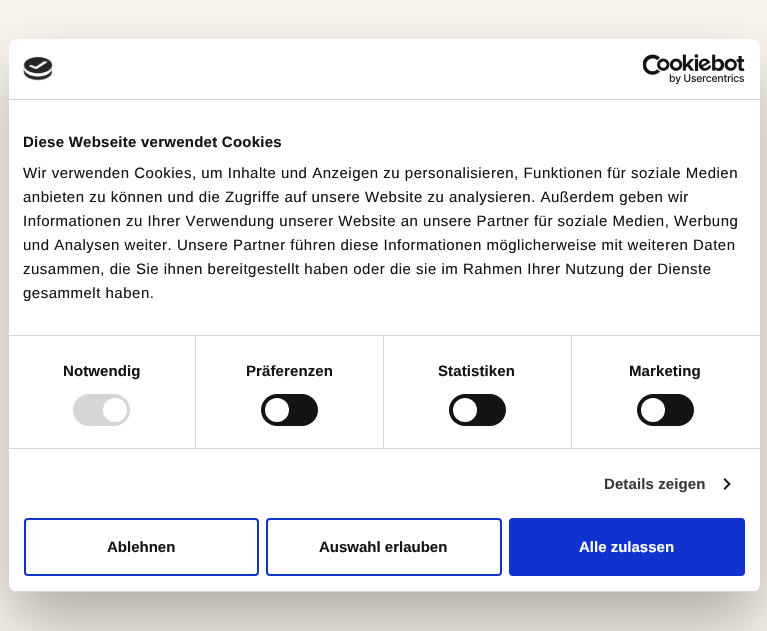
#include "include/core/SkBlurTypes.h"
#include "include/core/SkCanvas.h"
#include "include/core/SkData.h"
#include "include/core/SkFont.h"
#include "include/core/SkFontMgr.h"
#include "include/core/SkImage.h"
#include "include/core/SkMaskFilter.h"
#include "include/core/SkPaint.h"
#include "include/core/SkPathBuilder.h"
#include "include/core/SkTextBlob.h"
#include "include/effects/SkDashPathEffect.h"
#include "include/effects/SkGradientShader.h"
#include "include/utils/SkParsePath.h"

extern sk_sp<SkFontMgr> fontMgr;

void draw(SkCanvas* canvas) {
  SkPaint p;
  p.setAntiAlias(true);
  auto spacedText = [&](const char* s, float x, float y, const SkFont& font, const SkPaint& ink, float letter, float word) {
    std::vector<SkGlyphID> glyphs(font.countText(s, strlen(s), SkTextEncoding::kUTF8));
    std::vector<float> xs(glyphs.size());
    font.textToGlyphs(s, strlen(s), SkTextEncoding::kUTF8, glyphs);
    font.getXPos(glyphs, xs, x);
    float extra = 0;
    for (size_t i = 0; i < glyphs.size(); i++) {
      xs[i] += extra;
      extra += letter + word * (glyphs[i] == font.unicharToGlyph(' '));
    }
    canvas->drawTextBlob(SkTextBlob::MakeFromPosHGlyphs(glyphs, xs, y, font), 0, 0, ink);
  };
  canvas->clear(SkColorSetRGB(250, 246, 238));
  p.setColor(SkColorSetARGB(77, 0, 0, 0));
  p.setMaskFilter(SkMaskFilter::MakeBlur(kNormal_SkBlurStyle, 34));
  canvas->drawRoundRect(SkRect::MakeLTRB(9, 71, 760, 624), 8, 8, p);
  p.setMaskFilter(nullptr);
  p.setColor(SK_ColorWHITE);
  canvas->drawRoundRect(SkRect::MakeLTRB(9, 39, 760, 592), 8, 8, p);
  p.setColor(SkColorSetRGB(214, 214, 214));
  canvas->drawRect(SkRect::MakeLTRB(9, 99, 760, 100), p);
  canvas->drawImageRect(SkImages::DeferredFromEncodedData(SkData::MakeFromFileName("images/1.png")), SkRect::MakeLTRB(23, 57, 53, 81), SkSamplingOptions());
  canvas->drawImageRect(SkImages::DeferredFromEncodedData(SkData::MakeFromFileName("images/2.png")), SkRect::MakeLTRB(643, 54, 745, 84), SkSamplingOptions());
  canvas->drawRect(SkRect::MakeLTRB(9, 335, 760, 336), p);
  canvas->drawRect(SkRect::MakeLTRB(9, 448, 760, 449), p);
  canvas->drawRect(SkRect::MakeLTRB(195, 336, 196, 448), p);
  canvas->drawRoundRect(SkRect::MakeLTRB(73, 394, 130, 426), 16, 16, p);
  p.setColor(SK_ColorWHITE);
  canvas->drawCircle(115, 410, 12, p);
  p.setColor(SkColorSetRGB(214, 214, 214));
  canvas->drawRect(SkRect::MakeLTRB(383, 336, 384, 448), p);
  p.setColor(SkColorSetRGB(20, 20, 20));
  canvas->drawRoundRect(SkRect::MakeLTRB(261, 394, 318, 426), 16, 16, p);
  p.setColor(SK_ColorWHITE);
  canvas->drawCircle(277, 410, 12, p);
  p.setColor(SkColorSetRGB(214, 214, 214));
  canvas->drawRect(SkRect::MakeLTRB(571, 336, 572, 448), p);
  p.setColor(SkColorSetRGB(20, 20, 20));
  canvas->drawRoundRect(SkRect::MakeLTRB(449, 394, 506, 426), 16, 16, p);
  p.setColor(SK_ColorWHITE);
  canvas->drawCircle(465, 410, 12, p);
  p.setColor(SkColorSetRGB(20, 20, 20));
  canvas->drawRoundRect(SkRect::MakeLTRB(637, 394, 694, 426), 16, 16, p);
  p.setColor(SK_ColorWHITE);
  canvas->drawCircle(653, 410, 12, p);
  p.setColor(SkColorSetRGB(20, 20, 20));
  canvas->drawPath(SkPathBuilder().moveTo(725, 478).lineTo(730.5f, 484).lineTo(729.5f, 485.5f).lineTo(723.5f, 479.5f).close().detach(), p);
  canvas->drawPath(SkPathBuilder().moveTo(729.5f, 482.5f).lineTo(730.5f, 484).lineTo(725, 490).lineTo(723.5f, 488.5f).close().detach(), p);
  canvas->save();
  canvas->clipPath(SkPathBuilder().moveTo(17, 39).lineTo(752, 39).cubicTo(756.5f, 39, 760, 42.5f, 760, 47).lineTo(760, 584).cubicTo(760, 588.5f, 756.5f, 592, 752, 592).lineTo(17, 592).cubicTo(12.5f, 592, 9, 588.5f, 9, 584).lineTo(9, 47).cubicTo(9, 42.5f, 12.5f, 39, 17, 39).close().detach(), true);
  p.setColor(SkColorSetRGB(214, 214, 214));
  canvas->drawRect(SkRect::MakeLTRB(9, 591, 760, 592), p);
  canvas->restore();
  p.setStyle(SkPaint::kStroke_Style);
  p.setStrokeWidth(2);
  p.setColor(SkColorSetRGB(16, 50, 207));
  canvas->drawRoundRect(SkRect::MakeLTRB(25, 519, 258, 575), 3, 3, p);
  canvas->drawRoundRect(SkRect::MakeLTRB(267, 519, 501, 575), 3, 3, p);
  p.setStyle(SkPaint::kFill_Style);
  canvas->drawRoundRect(SkRect::MakeLTRB(510, 519, 744, 575), 3, 3, p);
  p.setStyle(SkPaint::kStroke_Style);
  canvas->drawRoundRect(SkRect::MakeLTRB(510, 519, 744, 575), 3, 3, p);
  SkFont font1(fontMgr->matchFamilyStyle("Liberation Sans", SkFontStyle::Bold()), 15);
  font1.setSubpixel(true);
  p.setStyle(SkPaint::kFill_Style);
  p.setColor(SkColorSetRGB(20, 20, 20));
  spacedText("Diese Webseite verwendet Cookies", 23, 147, font1, p, 0.25f, 0);
  SkFont font2(fontMgr->matchFamilyStyle("Liberation Sans", SkFontStyle::Normal()), 15);
  font2.setSubpixel(true);
  spacedText("Wir verwenden Cookies, um Inhalte und Anzeigen zu personalisieren, Funktionen für soziale Medien", 23, 178, font2, p, 0.5f, 0);
  spacedText("anbieten zu können und die Zugriffe auf unsere Website zu analysieren. Außerdem geben wir", 23, 202, font2, p, 0.5f, 0);
  spacedText("Informationen zu Ihrer Verwendung unserer Website an unsere Partner für soziale Medien, Werbung", 23, 226, font2, p, 0.5f, 0);
  spacedText("und Analysen weiter. Unsere Partner führen diese Informationen möglicherweise mit weiteren Daten", 23, 250, font2, p, 0.5f, 0);
  spacedText("zusammen, die Sie ihnen bereitgestellt haben oder die sie im Rahmen Ihrer Nutzung der Dienste", 23, 274, font2, p, 0.5f, 0);
  spacedText("gesammelt haben.", 23, 298, font2, p, 0.5f, 0);
  spacedText("Notwendig", 63, 376, font1, p, 0.1f, 0);
  spacedText("Präferenzen", 246, 376, font1, p, 0.1f, 0);
  spacedText("Statistiken", 438, 376, font1, p, 0.1f, 0);
  spacedText("Marketing", 629, 376, font1, p, 0.1f, 0);
  p.setColor(SkColorSetRGB(58, 58, 58));
  spacedText("Details zeigen", 604, 489, font1, p, 0.1f, 0);
  p.setColor(SkColorSetRGB(20, 20, 20));
  canvas->drawString("Ablehnen", 107, 552, font1, p);
  canvas->drawString("Auswahl erlauben", 319, 552, font1, p);
  p.setColor(SK_ColorWHITE);
  canvas->drawString("Alle zulassen", 579, 552, font1, p);
}
